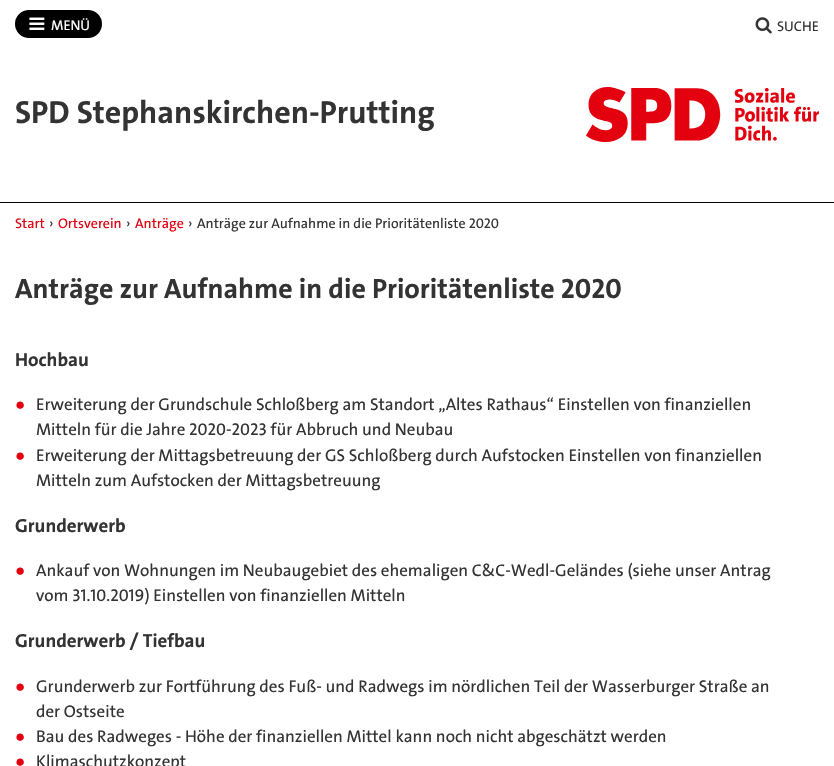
#include "include/core/SkBlurTypes.h"
#include "include/core/SkCanvas.h"
#include "include/core/SkData.h"
#include "include/core/SkFont.h"
#include "include/core/SkFontMgr.h"
#include "include/core/SkImage.h"
#include "include/core/SkMaskFilter.h"
#include "include/core/SkPaint.h"
#include "include/core/SkPathBuilder.h"
#include "include/core/SkTextBlob.h"
#include "include/effects/SkDashPathEffect.h"
#include "include/effects/SkGradientShader.h"
#include "include/utils/SkParsePath.h"

extern sk_sp<SkFontMgr> fontMgr;

void draw(SkCanvas* canvas) {
  SkPaint p;
  p.setAntiAlias(true);
  canvas->clear(SK_ColorWHITE);
  p.setColor(SK_ColorBLACK);
  canvas->drawRoundRect(SkRect::MakeLTRB(16, 11, 101, 37), 13, 13, p);
  p.setStyle(SkPaint::kStroke_Style);
  p.setStrokeWidth(2);
  canvas->drawRoundRect(SkRect::MakeLTRB(16, 11, 101, 37), 13, 13, p);
  canvas->drawImageRect(SkImages::DeferredFromEncodedData(SkData::MakeFromFileName("images/1.png")), SkRect::MakeLTRB(29, 17, 45, 30), SkSamplingOptions());
  canvas->drawImageRect(SkImages::DeferredFromEncodedData(SkData::MakeFromFileName("images/2.png")), SkRect::MakeLTRB(755, 17, 772, 34), SkSamplingOptions());
  canvas->drawImageRect(SkImages::DeferredFromEncodedData(SkData::MakeFromFileName("images/3.png")), SkRect::MakeLTRB(586, 87, 819, 142), SkSamplingOptions());
  p.setStyle(SkPaint::kFill_Style);
  canvas->drawRect(SkRect::MakeLTRB(0, 202, 834, 203), p);
  SkFont font1(fontMgr->matchFamilyStyle("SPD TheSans", SkFontStyle(500, SkFontStyle::kNormal_Width, SkFontStyle::kUpright_Slant)), 14);
  font1.setSubpixel(true);
  p.setColor(SK_ColorWHITE);
  canvas->drawString("MENÜ", 51, 30, font1, p);
  p.setColor(SkColorSetRGB(51, 51, 51));
  canvas->drawString("SUCHE", 777, 31, font1, p);
  SkFont font2(fontMgr->matchFamilyStyle("SPD TheSans", SkFontStyle::Bold()), 32);
  font2.setSubpixel(true);
  canvas->drawString("SPD Stephanskirchen-Prutting", 15, 123, font2, p);
  p.setColor(SkColorSetRGB(227, 0, 15));
  canvas->drawString("Start", 15, 228, font1, p);
  p.setColor(SkColorSetRGB(51, 51, 51));
  canvas->drawString("›", 49, 228, font1, p);
  p.setColor(SkColorSetRGB(227, 0, 15));
  canvas->drawString("Ortsverein", 58, 228, font1, p);
  p.setColor(SkColorSetRGB(51, 51, 51));
  canvas->drawString("›", 126, 228, font1, p);
  p.setColor(SkColorSetRGB(227, 0, 15));
  canvas->drawString("Anträge", 135, 228, font1, p);
  p.setColor(SkColorSetRGB(51, 51, 51));
  canvas->drawString("›", 188, 228, font1, p);
  canvas->drawString("Anträge zur Aufnahme in die Prioritätenliste 2020", 197, 228, font1, p);
  SkFont font3(fontMgr->matchFamilyStyle("SPD TheSans", SkFontStyle::Bold()), 28);
  font3.setSubpixel(true);
  canvas->drawString("Anträge zur Aufnahme in die Prioritätenliste 2020", 15, 298, font3, p);
  SkFont font4(fontMgr->matchFamilyStyle("SPD TheSans", SkFontStyle::Bold()), 19);
  font4.setSubpixel(true);
  canvas->drawString("Hochbau", 15, 366, font4, p);
  SkFont font5(fontMgr->matchFamilyStyle("Liberation Sans", SkFontStyle::Normal()), 17);
  font5.setSubpixel(true);
  p.setColor(SkColorSetRGB(227, 0, 15));
  canvas->drawString("●", 15, 410, font5, p);
  SkFont font6(fontMgr->matchFamilyStyle("SPD TheSans", SkFontStyle(500, SkFontStyle::kNormal_Width, SkFontStyle::kUpright_Slant)), 17);
  font6.setSubpixel(true);
  p.setColor(SkColorSetRGB(51, 51, 51));
  canvas->drawString("Erweiterung der Grundschule Schloßberg am Standort „Altes Rathaus“ Einstellen von finanziellen", 36, 410, font6, p);
  canvas->drawString("Mitteln für die Jahre 2020-2023 für Abbruch und Neubau", 36, 435, font6, p);
  p.setColor(SkColorSetRGB(227, 0, 15));
  canvas->drawString("●", 15, 461, font5, p);
  p.setColor(SkColorSetRGB(51, 51, 51));
  canvas->drawString("Erweiterung der Mittagsbetreuung der GS Schloßberg durch Aufstocken Einstellen von finanziellen", 36, 461, font6, p);
  canvas->drawString("Mitteln zum Aufstocken der Mittagsbetreuung", 36, 486, font6, p);
  canvas->drawString("Grunderwerb", 15, 532, font4, p);
  p.setColor(SkColorSetRGB(227, 0, 15));
  canvas->drawString("●", 15, 576, font5, p);
  p.setColor(SkColorSetRGB(51, 51, 51));
  canvas->drawString("Ankauf von Wohnungen im Neubaugebiet des ehemaligen C&C-Wedl-Geländes (siehe unser Antrag", 36, 576, font6, p);
  canvas->drawString("vom 31.10.2019) Einstellen von finanziellen Mitteln", 36, 601, font6, p);
  canvas->drawString("Grunderwerb / Tiefbau", 15, 647, font4, p);
  p.setColor(SkColorSetRGB(227, 0, 15));
  canvas->drawString("●", 15, 692, font5, p);
  p.setColor(SkColorSetRGB(51, 51, 51));
  canvas->drawString("Grunderwerb zur Fortführung des Fuß- und Radwegs im nördlichen Teil der Wasserburger Straße an", 36, 692, font6, p);
  canvas->drawString("der Ostseite", 36, 717, font6, p);
  p.setColor(SkColorSetRGB(227, 0, 15));
  canvas->drawString("●", 15, 742, font5, p);
  p.setColor(SkColorSetRGB(51, 51, 51));
  canvas->drawString("Bau des Radweges - Höhe der finanziellen Mittel kann noch nicht abgeschätzt werden", 36, 742, font6, p);
  p.setColor(SkColorSetRGB(227, 0, 15));
  canvas->drawString("●", 15, 767, font5, p);
  p.setColor(SkColorSetRGB(51, 51, 51));
  canvas->drawString("Klimaschutzkonzept", 36, 767, font6, p);
}
